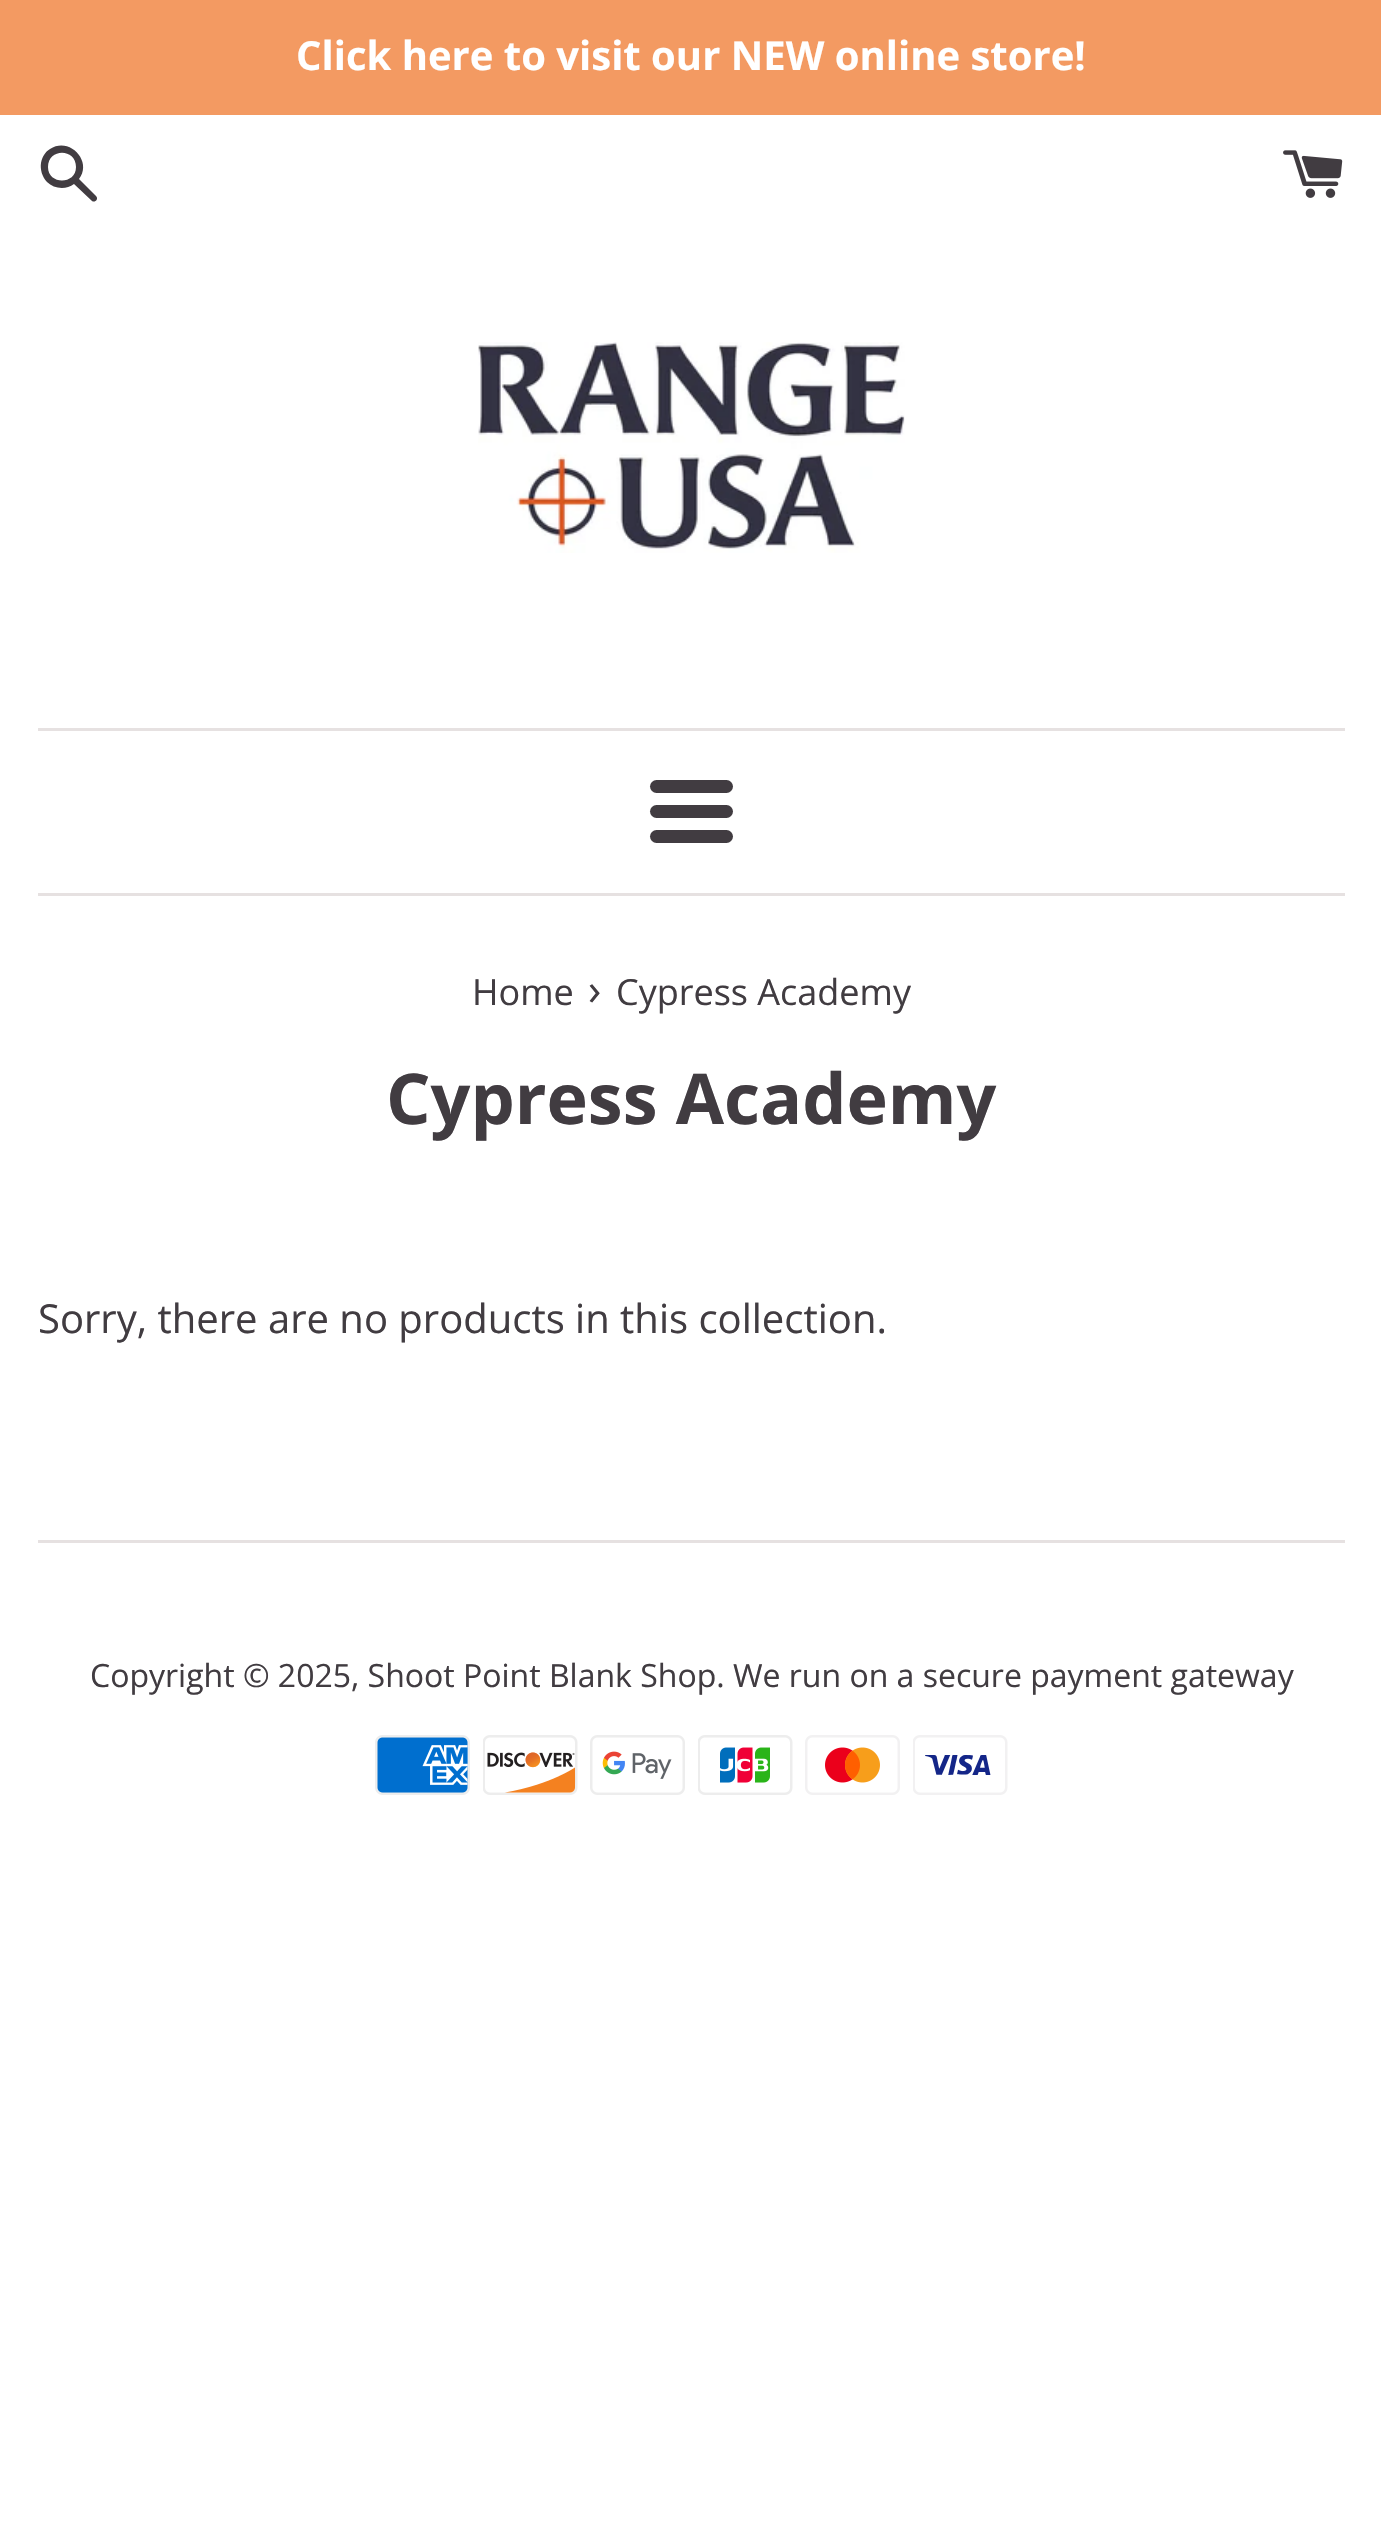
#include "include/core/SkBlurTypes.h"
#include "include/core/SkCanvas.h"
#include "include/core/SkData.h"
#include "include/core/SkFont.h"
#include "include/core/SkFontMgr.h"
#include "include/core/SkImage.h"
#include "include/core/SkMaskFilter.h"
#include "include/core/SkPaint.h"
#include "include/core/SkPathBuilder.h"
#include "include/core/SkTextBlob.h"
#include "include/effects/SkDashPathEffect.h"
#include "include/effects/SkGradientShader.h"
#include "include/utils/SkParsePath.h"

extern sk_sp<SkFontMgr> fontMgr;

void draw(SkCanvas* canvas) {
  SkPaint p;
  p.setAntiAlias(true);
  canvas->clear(SK_ColorWHITE);
  p.setColor(SkColorSetRGB(243, 154, 98));
  canvas->drawRect(SkRect::MakeLTRB(0, 0, 1381, 115), p);
  p.setColor(SkColorSetRGB(65, 60, 65));
  canvas->drawPath(SkPathBuilder().moveTo(96, 196).lineTo(79, 179).cubicTo(93, 161, 69, 136, 50, 149).cubicTo(45, 152, 42, 157, 41, 163).cubicTo(40, 169, 42, 177, 47, 182).cubicTo(54, 189, 66, 190, 74, 184).lineTo(92, 201).cubicTo(95, 203, 99, 199, 96, 196).close().moveTo(48, 167).cubicTo(48, 148, 76, 148, 76, 167).cubicTo(76, 185, 48, 185, 48, 167).close().detach(), p);
  canvas->drawImageRect(SkImages::DeferredFromEncodedData(SkData::MakeFromFileName("images/1.png")), SkRect::MakeLTRB(1283, 150, 1343, 198), SkSamplingOptions());
  canvas->drawImageRect(SkImages::DeferredFromEncodedData(SkData::MakeFromFileName("images/2.png")), SkRect::MakeLTRB(478, 342, 905, 553), SkSamplingOptions());
  p.setColor(SkColorSetRGB(230, 225, 225));
  canvas->drawRect(SkRect::MakeLTRB(38, 728, 1345, 731), p);
  p.setColor(SkColorSetRGB(65, 60, 65));
  canvas->drawRoundRect(SkRect::MakeLTRB(650, 780, 733, 793), 6.5f, 6.5f, p);
  canvas->drawRoundRect(SkRect::MakeLTRB(650, 805, 733, 818), 6.5f, 6.5f, p);
  canvas->drawRoundRect(SkRect::MakeLTRB(650, 830, 733, 843), 6.5f, 6.5f, p);
  p.setColor(SkColorSetRGB(230, 225, 225));
  canvas->drawRect(SkRect::MakeLTRB(38, 893, 1345, 896), p);
  canvas->drawRect(SkRect::MakeLTRB(38, 1540, 1345, 1543), p);
  canvas->drawImageRect(SkImages::DeferredFromEncodedData(SkData::MakeFromFileName("images/3.png")), SkRect::MakeLTRB(375, 1735, 470, 1795), SkSamplingOptions());
  canvas->drawImageRect(SkImages::DeferredFromEncodedData(SkData::MakeFromFileName("images/4.png")), SkRect::MakeLTRB(483, 1735, 578, 1795), SkSamplingOptions());
  canvas->drawImageRect(SkImages::DeferredFromEncodedData(SkData::MakeFromFileName("images/5.png")), SkRect::MakeLTRB(590, 1735, 685, 1795), SkSamplingOptions());
  canvas->drawImageRect(SkImages::DeferredFromEncodedData(SkData::MakeFromFileName("images/6.png")), SkRect::MakeLTRB(698, 1735, 793, 1795), SkSamplingOptions());
  canvas->drawImageRect(SkImages::DeferredFromEncodedData(SkData::MakeFromFileName("images/7.png")), SkRect::MakeLTRB(805, 1735, 900, 1795), SkSamplingOptions());
  canvas->drawImageRect(SkImages::DeferredFromEncodedData(SkData::MakeFromFileName("images/8.png")), SkRect::MakeLTRB(913, 1735, 1008, 1795), SkSamplingOptions());
  SkFont font1(fontMgr->matchFamilyStyle("Open Sans", SkFontStyle::Bold()), 40);
  font1.setSubpixel(true);
  p.setColor(SK_ColorWHITE);
  canvas->drawString("Click here to visit our NEW online store!", 296, 70, font1, p);
  SkFont font2(fontMgr->matchFamilyStyle("Open Sans", SkFontStyle::Normal()), 36);
  font2.setSubpixel(true);
  p.setColor(SkColorSetRGB(65, 60, 65));
  canvas->drawString("Home", 472, 1005, font2, p);
  SkFont font3(fontMgr->matchFamilyStyle("Open Sans", SkFontStyle::Normal()), 44);
  font3.setSubpixel(true);
  canvas->drawString("›", 588, 1005, font3, p);
  canvas->drawString("Cypress Academy", 616, 1005, font2, p);
  SkFont font4(fontMgr->matchFamilyStyle("Open Sans", SkFontStyle::Bold()), 70);
  font4.setSubpixel(true);
  canvas->drawString("Cypress Academy", 386, 1124, font4, p);
  SkFont font5(fontMgr->matchFamilyStyle("Open Sans", SkFontStyle::Normal()), 40);
  font5.setSubpixel(true);
  canvas->drawString("Sorry, there are no products in this collection.", 38, 1333, font5, p);
  SkFont font6(fontMgr->matchFamilyStyle("Open Sans", SkFontStyle::Normal()), 32);
  font6.setSubpixel(true);
  canvas->drawString("Copyright © 2025, Shoot Point Blank Shop. We run on a secure payment gateway", 90, 1687, font6, p);
}
